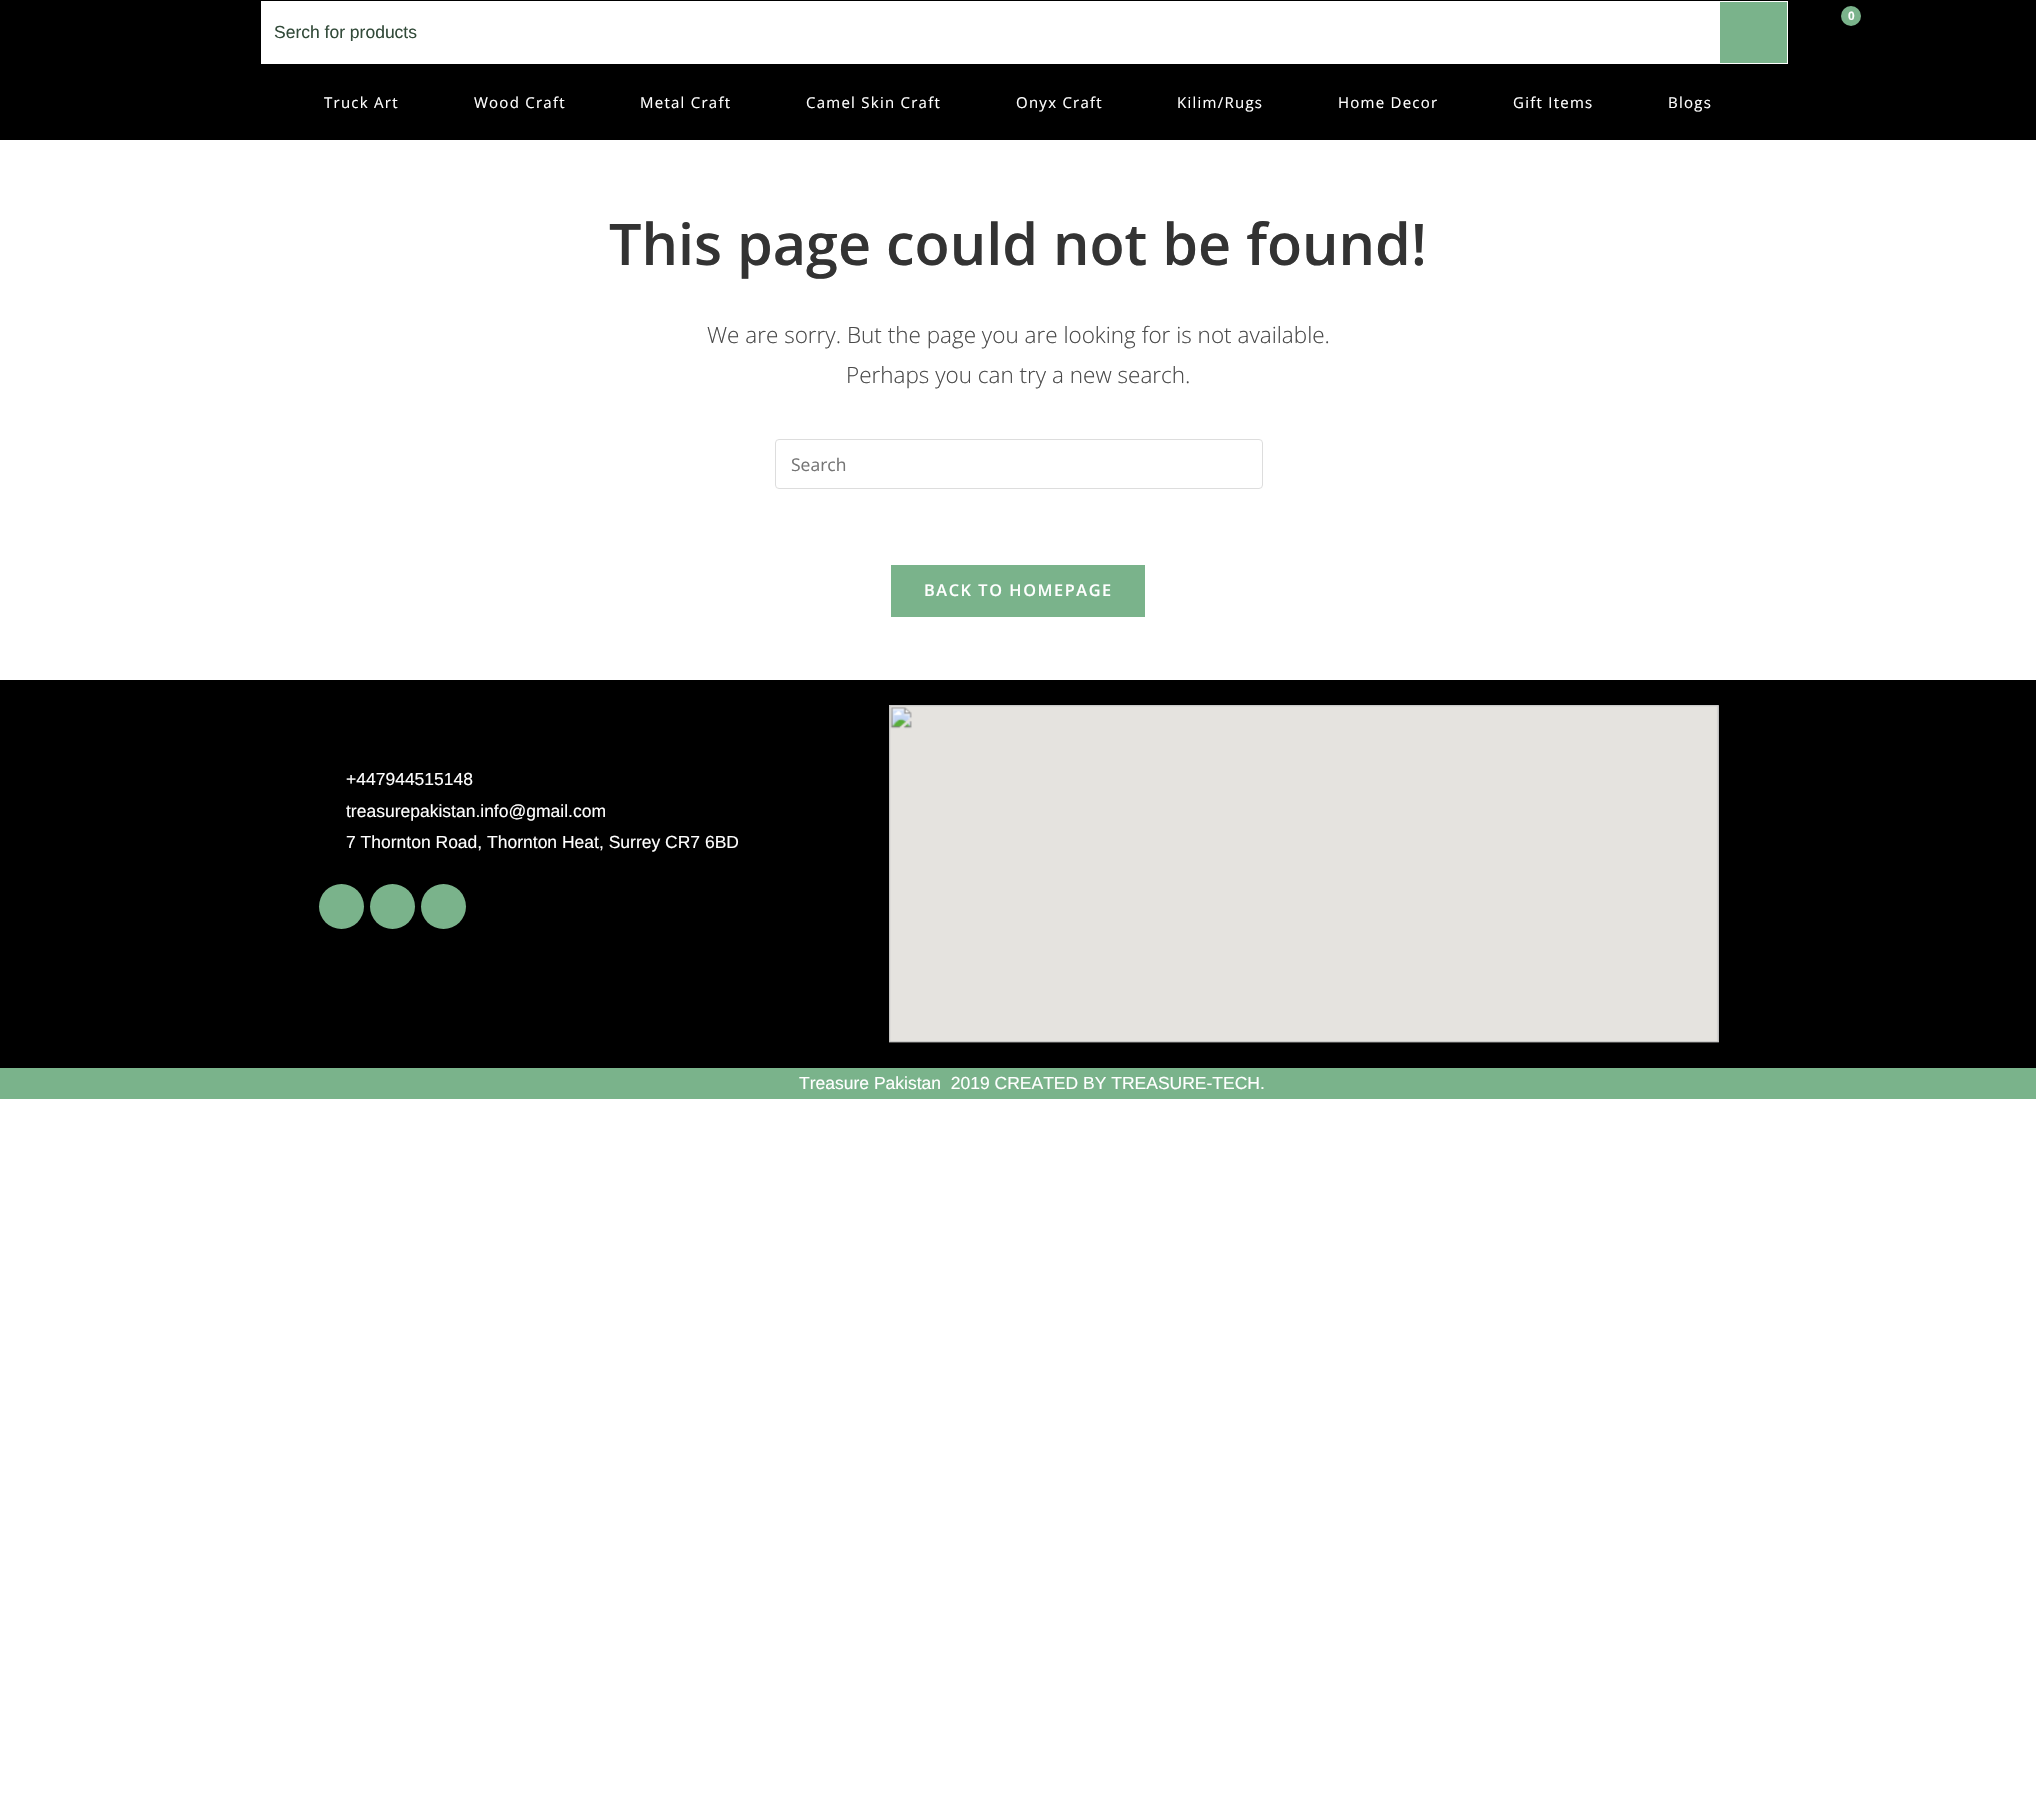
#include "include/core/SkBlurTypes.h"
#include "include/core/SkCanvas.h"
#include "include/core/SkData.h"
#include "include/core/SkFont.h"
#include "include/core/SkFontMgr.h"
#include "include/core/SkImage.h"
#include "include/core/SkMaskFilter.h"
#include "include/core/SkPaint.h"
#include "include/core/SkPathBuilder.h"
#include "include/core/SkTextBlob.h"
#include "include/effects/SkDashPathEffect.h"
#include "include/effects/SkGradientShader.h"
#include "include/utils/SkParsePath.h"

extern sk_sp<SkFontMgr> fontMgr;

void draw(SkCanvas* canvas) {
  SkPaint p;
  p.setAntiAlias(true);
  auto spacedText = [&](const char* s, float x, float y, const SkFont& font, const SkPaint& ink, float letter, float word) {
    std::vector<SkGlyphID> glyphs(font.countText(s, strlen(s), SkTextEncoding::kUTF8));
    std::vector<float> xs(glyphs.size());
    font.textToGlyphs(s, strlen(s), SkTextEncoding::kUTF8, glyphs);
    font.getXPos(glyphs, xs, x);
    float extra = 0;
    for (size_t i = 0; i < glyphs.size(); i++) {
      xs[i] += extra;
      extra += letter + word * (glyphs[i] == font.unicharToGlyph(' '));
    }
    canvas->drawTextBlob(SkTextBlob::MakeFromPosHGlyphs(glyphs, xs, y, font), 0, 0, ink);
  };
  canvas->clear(SK_ColorWHITE);
  p.setColor(SK_ColorBLACK);
  canvas->drawRect(SkRect::MakeLTRB(0, 0, 2036, 140), p);
  p.setColor(SkColorSetRGB(122, 179, 139));
  canvas->drawCircle(1851, 16, 10, p);
  p.setColor(SK_ColorWHITE);
  canvas->drawRect(SkRect::MakeLTRB(261, 1, 1719, 64), p);
  p.setColor(SkColorSetRGB(122, 179, 139));
  canvas->drawRect(SkRect::MakeLTRB(1719.5f, 1.5f, 1787.5f, 63.5f), p);
  p.setStyle(SkPaint::kStroke_Style);
  p.setStrokeWidth(1);
  p.setColor(SK_ColorWHITE);
  canvas->drawRect(SkRect::MakeLTRB(1719.5f, 1.5f, 1787.5f, 63.5f), p);
  p.setColor(SkColorSetRGB(221, 221, 221));
  canvas->drawRoundRect(SkRect::MakeLTRB(775.5f, 439.5f, 1262.5f, 488.5f), 3.5f, 3.5f, p);
  p.setStyle(SkPaint::kFill_Style);
  p.setColor(SkColorSetRGB(122, 179, 139));
  canvas->drawRect(SkRect::MakeLTRB(891, 565, 1145, 617), p);
  p.setColor(SK_ColorBLACK);
  canvas->drawRect(SkRect::MakeLTRB(0, 680, 2036, 1068), p);
  p.setColor(SkColorSetRGB(122, 179, 139));
  canvas->drawCircle(341.5f, 906.5f, 22.5f, p);
  canvas->drawCircle(392.5f, 906.5f, 22.5f, p);
  canvas->drawCircle(443.5f, 906.5f, 22.5f, p);
  canvas->drawImageRect(SkImages::DeferredFromEncodedData(SkData::MakeFromFileName("images/1.png")), SkRect::MakeLTRB(889, 705, 1719, 1043), SkSamplingOptions());
  canvas->drawRect(SkRect::MakeLTRB(0, 1068, 2036, 1099), p);
  SkFont font1(fontMgr->matchFamilyStyle("Liberation Sans", SkFontStyle::Bold()), 12);
  font1.setSubpixel(true);
  p.setColor(SK_ColorWHITE);
  canvas->drawString("0", 1848, 20, font1, p);
  canvas->save();
  canvas->clipRect(SkRect::MakeLTRB(274, 21, 1706, 41));
  SkFont font2(fontMgr->matchFamilyStyle("Liberation Sans", SkFontStyle::Normal()), 17.5f);
  font2.setSubpixel(true);
  p.setColor(SkColorSetRGB(51, 75, 58));
  canvas->drawString("Serch for products", 274, 38, font2, p);
  canvas->restore();
  SkFont font3(fontMgr->matchFamilyStyle("Open Sans", SkFontStyle::Normal()), 15);
  font3.setSubpixel(true);
  p.setColor(SK_ColorWHITE);
  spacedText("Truck Art", 324, 108, font3, p, 1.25f, 0);
  spacedText("Wood Craft", 474, 108, font3, p, 1.25f, 0);
  spacedText("Metal Craft", 640, 108, font3, p, 1.25f, 0);
  spacedText("Camel Skin Craft", 806, 108, font3, p, 1.25f, 0);
  spacedText("Onyx Craft", 1016, 108, font3, p, 1.25f, 0);
  spacedText("Kilim/Rugs", 1177, 108, font3, p, 1.25f, 0);
  spacedText("Home Decor", 1338, 108, font3, p, 1.25f, 0);
  spacedText("Gift Items", 1513, 108, font3, p, 1.25f, 0);
  spacedText("Blogs", 1668, 108, font3, p, 1.25f, 0);
  SkFont font4(fontMgr->matchFamilyStyle("Open Sans", SkFontStyle(600, SkFontStyle::kNormal_Width, SkFontStyle::kUpright_Slant)), 57.5f);
  font4.setSubpixel(true);
  p.setColor(SkColorSetRGB(51, 51, 51));
  canvas->drawString("This page could not be found!", 609, 265, font4, p);
  SkFont font5(fontMgr->matchFamilyStyle("Open Sans", SkFontStyle(300, SkFontStyle::kNormal_Width, SkFontStyle::kUpright_Slant)), 22.5f);
  font5.setSubpixel(true);
  p.setColor(SkColorSetRGB(74, 74, 74));
  canvas->drawString("We are sorry. But the page you are looking for is not available.", 707, 343, font5, p);
  canvas->drawString("Perhaps you can try a new search.", 846, 383, font5, p);
  SkFont font6(fontMgr->matchFamilyStyle("Open Sans", SkFontStyle::Normal()), 17.5f);
  font6.setSubpixel(true);
  p.setColor(SkColorSetRGB(117, 117, 117));
  canvas->drawString("Search", 791, 471, font6, p);
  SkFont font7(fontMgr->matchFamilyStyle("Open Sans", SkFontStyle(600, SkFontStyle::kNormal_Width, SkFontStyle::kUpright_Slant)), 16.25f);
  font7.setSubpixel(true);
  p.setColor(SK_ColorWHITE);
  spacedText("BACK TO HOMEPAGE", 924, 596, font7, p, 1.6f, 0);
  canvas->drawString("+447944515148", 346, 785, font2, p);
  canvas->drawString("treasurepakistan.info@gmail.com", 346, 817, font2, p);
  canvas->drawString("7 Thornton Road, Thornton Heat, Surrey CR7 6BD", 346, 848, font2, p);
  canvas->drawString("Treasure Pakistan  2019 CREATED BY TREASURE-TECH.", 799, 1089, font2, p);
}
